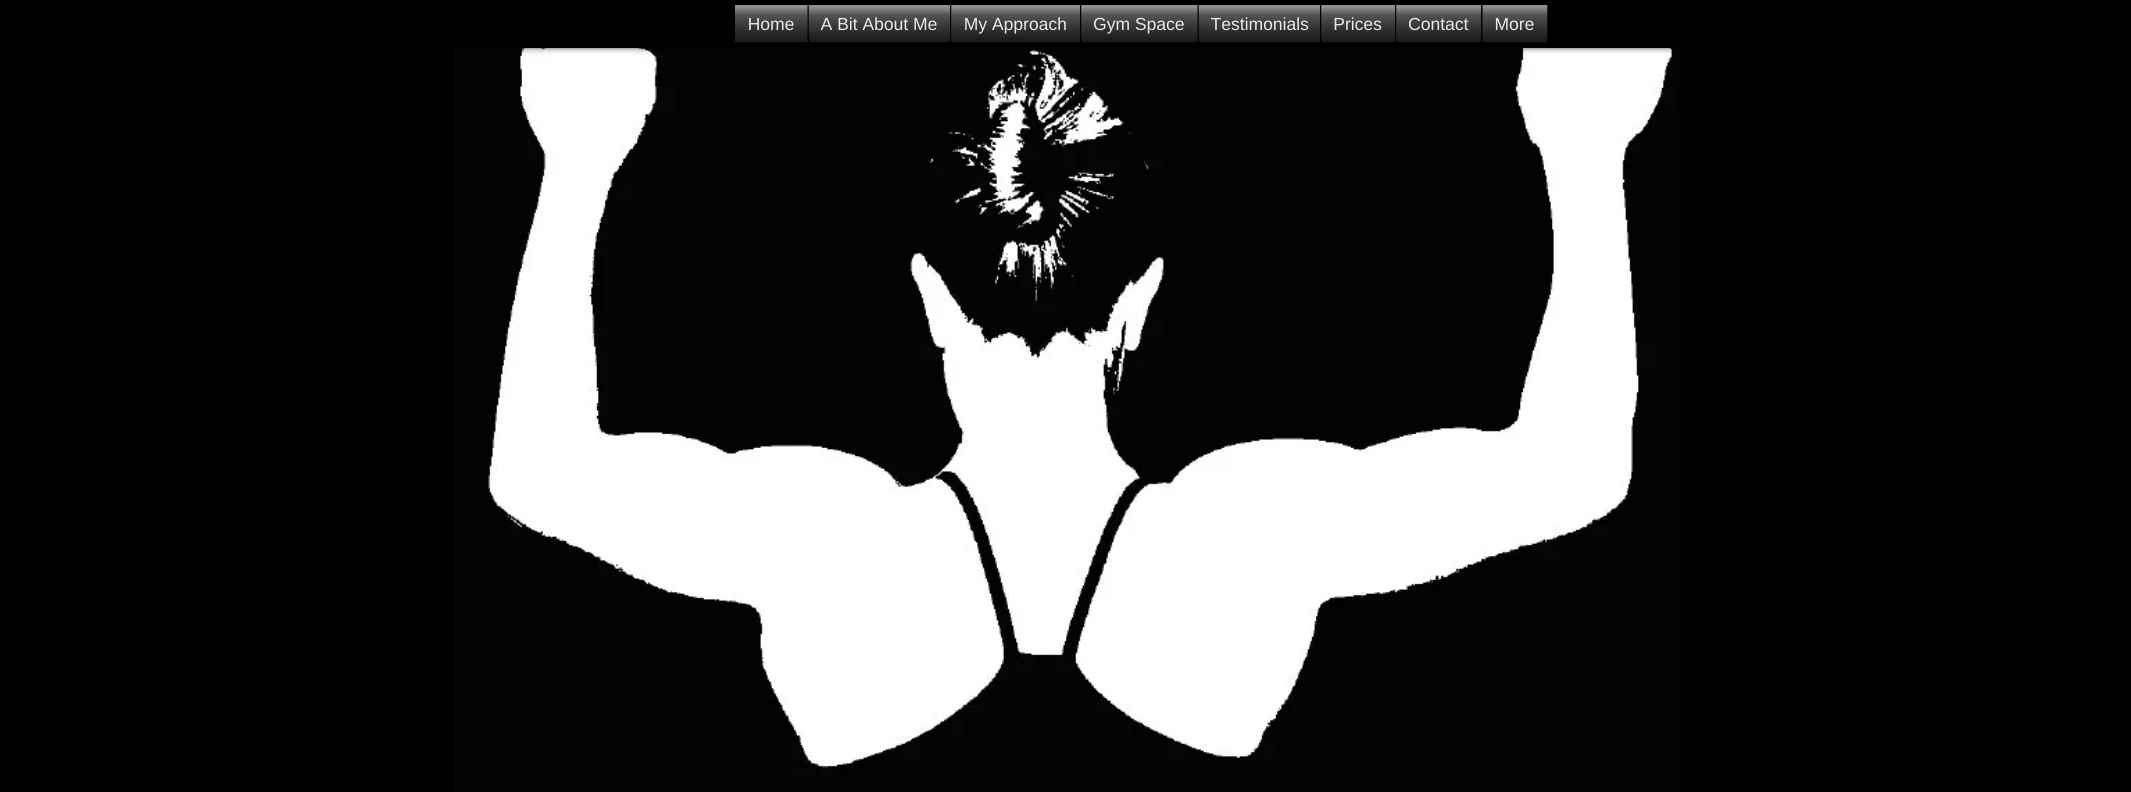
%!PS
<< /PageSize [2131 792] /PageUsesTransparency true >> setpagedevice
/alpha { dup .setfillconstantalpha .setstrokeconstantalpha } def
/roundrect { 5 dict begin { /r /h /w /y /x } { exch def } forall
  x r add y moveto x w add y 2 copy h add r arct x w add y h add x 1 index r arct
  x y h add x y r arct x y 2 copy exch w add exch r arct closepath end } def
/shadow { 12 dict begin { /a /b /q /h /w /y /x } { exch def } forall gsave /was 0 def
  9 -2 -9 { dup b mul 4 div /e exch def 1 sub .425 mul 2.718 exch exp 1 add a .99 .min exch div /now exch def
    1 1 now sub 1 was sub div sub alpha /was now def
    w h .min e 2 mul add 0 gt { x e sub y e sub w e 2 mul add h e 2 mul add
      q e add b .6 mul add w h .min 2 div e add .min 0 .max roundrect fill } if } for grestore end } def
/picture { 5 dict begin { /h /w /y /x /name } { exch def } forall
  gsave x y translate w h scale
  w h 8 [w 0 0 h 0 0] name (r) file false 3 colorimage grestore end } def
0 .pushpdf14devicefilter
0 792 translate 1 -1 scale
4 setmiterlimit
0 setgray
0 0 2131 792 rectfill
(img17.rgb) 454 48 1225 744 picture
0 -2 2131 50 0 3 0.7 shadow
/LiberationSans-Regular [17.5 0 0 -17.5 0 0] selectfont
1 setgray
748 30 moveto (Home) show
(img1.rgb) 735 5 73 38 picture
(img2.rgb) 735 5 72 36 picture
821 30 moveto (A Bit About Me) show
(img3.rgb) 808 5 142 38 picture
(img4.rgb) 809 5 141 36 picture
964 30 moveto (My Approach) show
(img5.rgb) 951 5 129 38 picture
(img6.rgb) 952 5 128 36 picture
1093 30 moveto (Gym Space) show
(img7.rgb) 1081 5 117 38 picture
(img8.rgb) 1082 5 115 36 picture
1211 30 moveto (Testimonials) show
(img9.rgb) 1198 5 122 38 picture
(img10.rgb) 1199 5 121 36 picture
1333 30 moveto (Prices) show
(img11.rgb) 1321 5 74 38 picture
(img12.rgb) 1322 5 73 36 picture
1408 30 moveto (Contact) show
(img13.rgb) 1396 5 85 38 picture
(img14.rgb) 1397 5 84 36 picture
1494 30 moveto (More) show
(img15.rgb) 1482 5 66 38 picture
(img16.rgb) 1483 5 64 36 picture
.poppdf14devicefilter showpage
